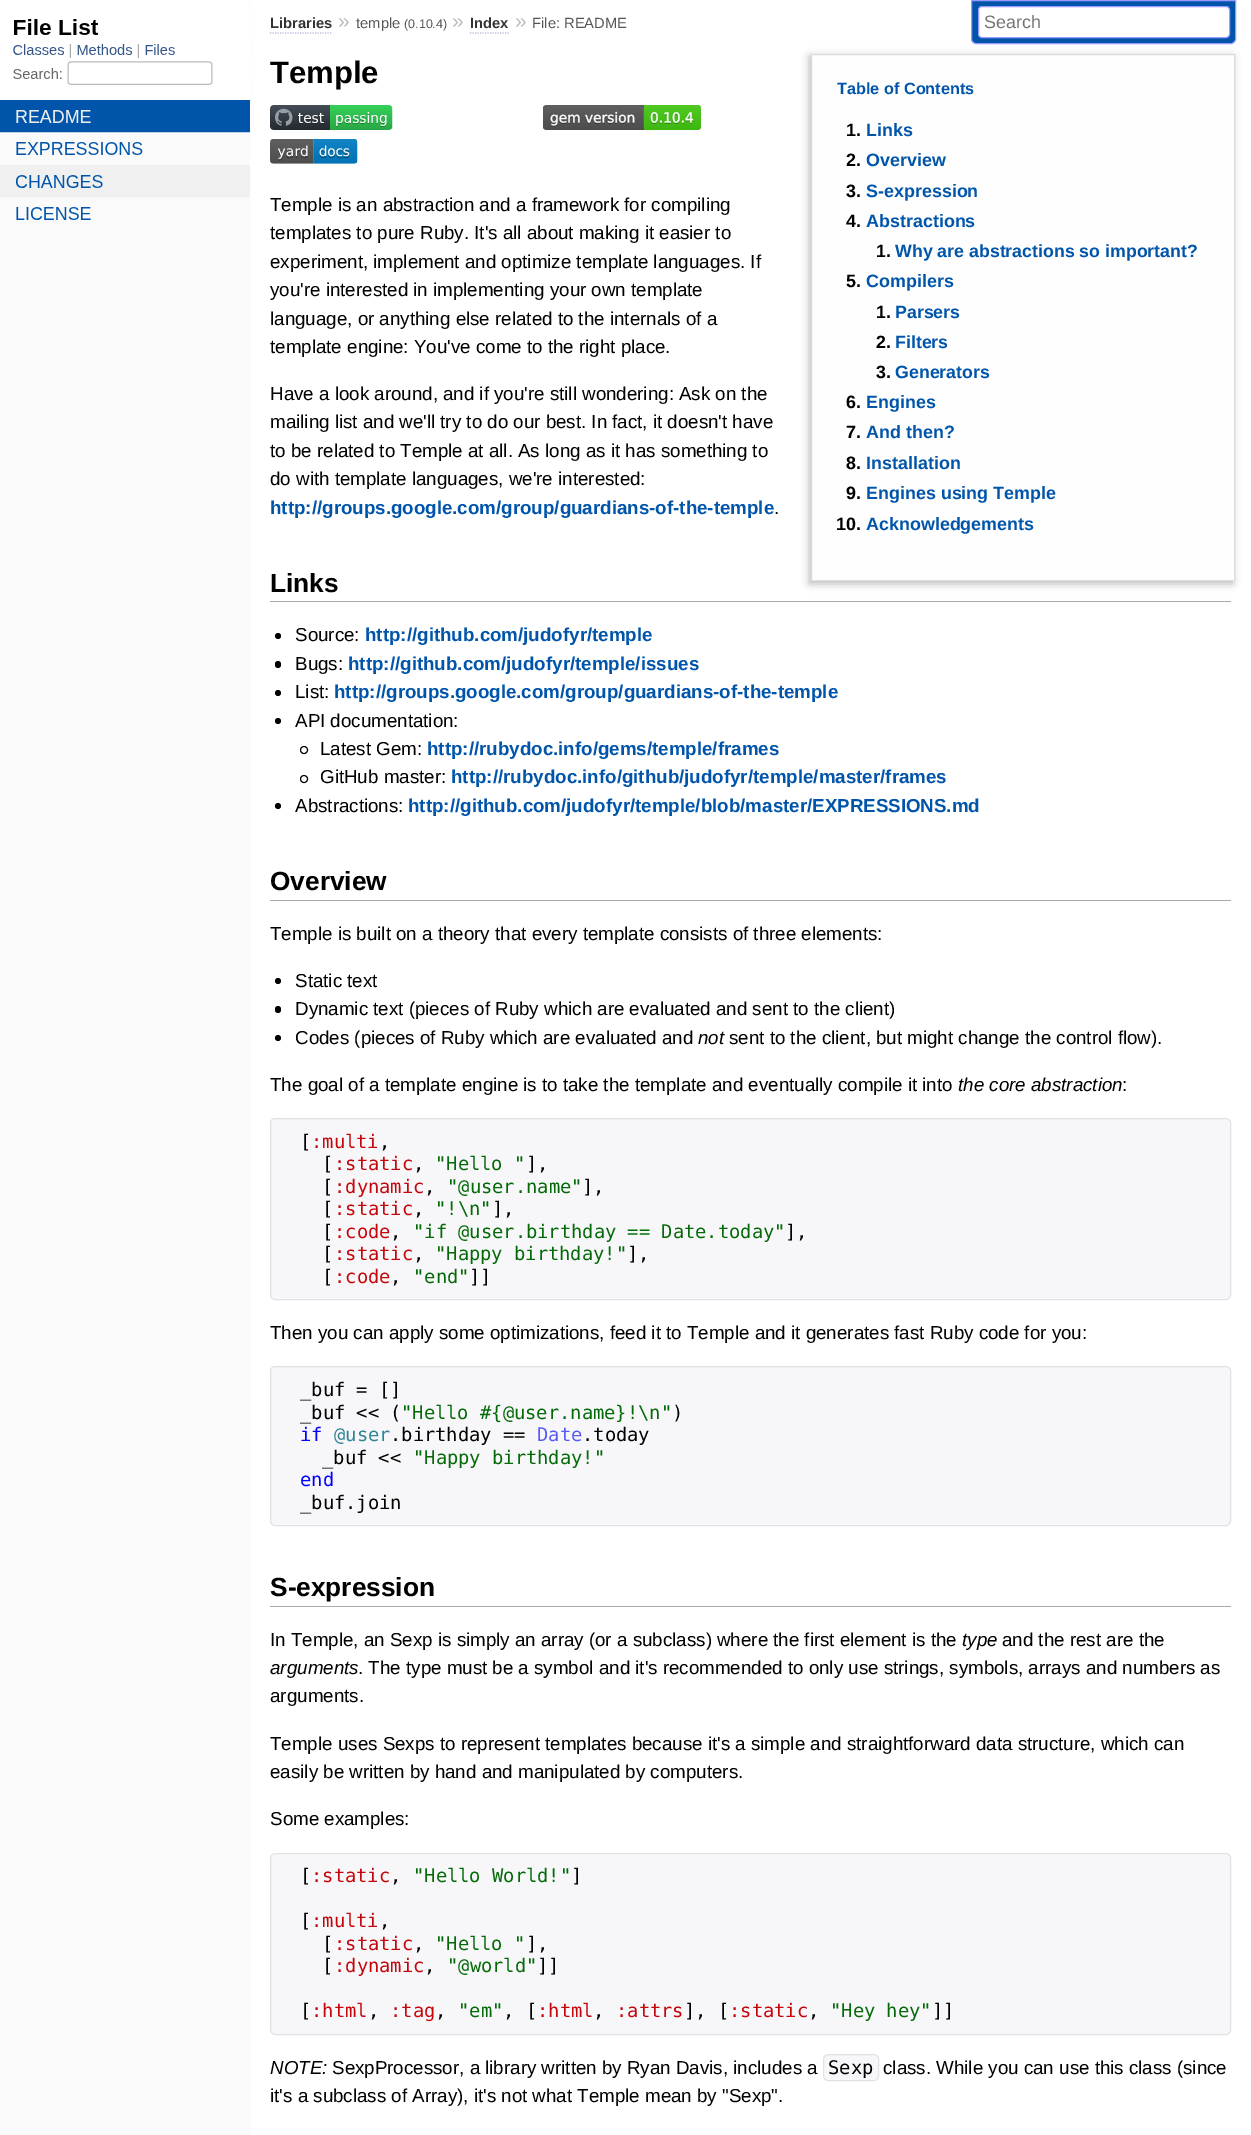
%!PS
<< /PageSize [1251 2135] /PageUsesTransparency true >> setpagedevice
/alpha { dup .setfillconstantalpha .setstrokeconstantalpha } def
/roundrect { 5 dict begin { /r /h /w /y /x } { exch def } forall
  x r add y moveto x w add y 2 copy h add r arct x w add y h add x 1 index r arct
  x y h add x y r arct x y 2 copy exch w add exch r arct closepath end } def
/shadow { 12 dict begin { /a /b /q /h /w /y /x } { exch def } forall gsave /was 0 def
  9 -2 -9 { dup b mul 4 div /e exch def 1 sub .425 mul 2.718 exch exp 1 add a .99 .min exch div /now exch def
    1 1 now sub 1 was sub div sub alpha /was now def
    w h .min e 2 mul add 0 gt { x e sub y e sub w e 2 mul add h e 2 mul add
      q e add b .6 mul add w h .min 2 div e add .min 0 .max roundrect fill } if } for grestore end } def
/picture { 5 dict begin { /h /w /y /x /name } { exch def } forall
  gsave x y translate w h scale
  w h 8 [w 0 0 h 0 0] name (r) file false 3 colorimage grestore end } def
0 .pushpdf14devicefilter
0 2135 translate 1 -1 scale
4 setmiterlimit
1 setgray
0 0 1251 2135 rectfill
0.933 setgray
1.2 setlinewidth
[1.25 1.25] 0 setdash
newpath 250.5 0 moveto 250.5 2135 lineto stroke
(img1.rgb) 0 19 250 2116 picture
1 setgray
250 0 1 2134 rectfill
/LiberationSans-Bold [14.75 0 0 -14.75 0 0] selectfont
0.2 setgray
270 28 moveto (Libraries) show
0.733 0.733 0.867 setrgbcolor
newpath 270 33 moveto 332.5 33 lineto stroke
/LiberationSans-Regular [21 0 0 -21 0 0] selectfont
0.733 setgray
338 28 moveto (») show
/LiberationSans-Regular [14.75 0 0 -14.75 0 0] selectfont
0.333 setgray
356 28 moveto (temple) show
/LiberationSans-Regular [12.5 0 0 -12.5 0 0] selectfont
404 28 moveto (\(0.10.4\)) show
/LiberationSans-Regular [21 0 0 -21 0 0] selectfont
0.733 setgray
452 28 moveto (») show
/LiberationSans-Bold [14.75 0 0 -14.75 0 0] selectfont
0.2 setgray
470 28 moveto (Index) show
0.733 0.733 0.867 setrgbcolor
newpath 470 33 moveto 509 33 lineto stroke
/LiberationSans-Regular [21 0 0 -21 0 0] selectfont
0.733 setgray
515 28 moveto (») show
/LiberationSans-Regular [14.75 0 0 -14.75 0 0] selectfont
0.333 setgray
532 28 moveto (File: README) show
0.733 setgray
809 56 424 528 0 4 1 shadow
0 0.333 0.667 setrgbcolor
newpath 971.5 0.5 moveto 1235.5 0.5 lineto 1235.5 39 lineto 1235.5 41.5 1233.5 43.5 1231 43.5 curveto 976 43.5 lineto 973.5 43.5 971.5 41.5 971.5 39 curveto closepath gsave fill grestore
0.6 0.6 1 setrgbcolor
1 setlinewidth
[] 0 setdash
stroke
1 setgray
978.5 6.5 251 31 3.5 roundrect gsave fill grestore
0.6 0.6 1 setrgbcolor
stroke
/LiberationSans-Regular [17.9 0 0 -17.9 0 0] selectfont
0.459 setgray
984 28 moveto (Search) show
/LiberationSans-Bold [31 0 0 -31 0 0] selectfont
0 setgray
270 83 moveto (Temple) show
(img2.rgb) 270 105 123 25 picture
(img3.rgb) 543 105 158 25 picture
(img4.rgb) 270 139 88 25 picture
/LiberationSans-Regular [18.75 0 0 -18.75 0 0] selectfont
270 211 moveto (Temple is an abstraction and a framework for compiling) show
270 239 moveto (templates to pure Ruby. It's all about making it easier to) show
270 268 moveto (experiment, implement and optimize template languages. If) show
270 296 moveto (you're interested in implementing your own template) show
270 325 moveto (language, or anything else related to the internals of a) show
270 353 moveto (template engine: You've come to the right place.) show
270 400 moveto (Have a look around, and if you're still wondering: Ask on the) show
270 428 moveto (mailing list and we'll try to do our best. In fact, it doesn't have) show
270 457 moveto (to be related to Temple at all. As long as it has something to) show
270 485 moveto (do with template languages, we're interested:) show
/LiberationSans-Bold [18.75 0 0 -18.75 0 0] selectfont
0 0.333 0.667 setrgbcolor
270 514 moveto (http://groups.google.com/group/guardians-of-the-temple) show
/LiberationSans-Regular [18.75 0 0 -18.75 0 0] selectfont
0 setgray
774 514 moveto (.) show
0.667 setgray
270 601 961 1 rectfill
/LiberationSans-Bold [26.25 0 0 -26.25 0 0] selectfont
0 setgray
270 592 moveto (Links) show
newpath 278 636 3 0 360 arc closepath fill
/LiberationSans-Regular [18.75 0 0 -18.75 0 0] selectfont
295 641 moveto (Source:) show
/LiberationSans-Bold [18.75 0 0 -18.75 0 0] selectfont
0 0.333 0.667 setrgbcolor
365 641 moveto (http://github.com/judofyr/temple) show
0 setgray
275 661 6 7 3 roundrect fill
/LiberationSans-Regular [18.75 0 0 -18.75 0 0] selectfont
295 670 moveto (Bugs:) show
/LiberationSans-Bold [18.75 0 0 -18.75 0 0] selectfont
0 0.333 0.667 setrgbcolor
348 670 moveto (http://github.com/judofyr/temple/issues) show
0 setgray
newpath 278 693 3 0 360 arc closepath fill
/LiberationSans-Regular [18.75 0 0 -18.75 0 0] selectfont
295 698 moveto (List:) show
/LiberationSans-Bold [18.75 0 0 -18.75 0 0] selectfont
0 0.333 0.667 setrgbcolor
334 698 moveto (http://groups.google.com/group/guardians-of-the-temple) show
0 setgray
newpath 278 721 3 0 360 arc closepath fill
/LiberationSans-Regular [18.75 0 0 -18.75 0 0] selectfont
295 727 moveto (API documentation:) show
newpath 304 750 3.5 0 360 arc closepath stroke
320 755 moveto (Latest Gem:) show
/LiberationSans-Bold [18.75 0 0 -18.75 0 0] selectfont
0 0.333 0.667 setrgbcolor
427 755 moveto (http://rubydoc.info/gems/temple/frames) show
0 setgray
newpath 304 779 3.5 0 360 arc closepath stroke
/LiberationSans-Regular [18.75 0 0 -18.75 0 0] selectfont
320 783 moveto (GitHub master:) show
/LiberationSans-Bold [18.75 0 0 -18.75 0 0] selectfont
0 0.333 0.667 setrgbcolor
451 783 moveto (http://rubydoc.info/github/judofyr/temple/master/frames) show
0 setgray
newpath 278 806 3 0 360 arc closepath fill
/LiberationSans-Regular [18.75 0 0 -18.75 0 0] selectfont
295 812 moveto (Abstractions:) show
/LiberationSans-Bold [18.75 0 0 -18.75 0 0] selectfont
0 0.333 0.667 setrgbcolor
408 812 moveto (http://github.com/judofyr/temple/blob/master/EXPRESSIONS.md) show
0.667 setgray
270 900 961 1 rectfill
/LiberationSans-Bold [26.25 0 0 -26.25 0 0] selectfont
0 setgray
270 890 moveto (Overview) show
/LiberationSans-Regular [18.75 0 0 -18.75 0 0] selectfont
270 940 moveto (Temple is built on a theory that every template consists of three elements:) show
newpath 278 981 3 0 360 arc closepath fill
295 987 moveto (Static text) show
275 1006 6 7 3 roundrect fill
295 1015 moveto (Dynamic text \(pieces of Ruby which are evaluated and sent to the client\)) show
newpath 278 1038 3 0 360 arc closepath fill
295 1044 moveto (Codes \(pieces of Ruby which are evaluated and) show
/LiberationSans-Italic [18.75 0 0 -18.75 0 0] selectfont
698 1044 moveto (not) show
/LiberationSans-Regular [18.75 0 0 -18.75 0 0] selectfont
729 1044 moveto (sent to the client, but might change the control flow\).) show
270 1091 moveto (The goal of a template engine is to take the template and eventually compile it into) show
/LiberationSans-Italic [18.75 0 0 -18.75 0 0] selectfont
958 1091 moveto (the core abstraction) show
/LiberationSans-Regular [18.75 0 0 -18.75 0 0] selectfont
1122 1091 moveto (:) show
0.969 0.969 0.976 setrgbcolor
270.5 1118.5 960 181 4.5 roundrect gsave fill grestore
0.882 0.882 0.91 setrgbcolor
stroke
/DejaVuSansMono-Regular [18.75 0 0 -18.75 0 0] selectfont
0 setgray
300 1148 moveto ([) show
0.773 0.024 0.043 setrgbcolor
311 1148 moveto (:multi) show
0 setgray
379 1148 moveto (,) show
322 1170 moveto ([) show
0.773 0.024 0.043 setrgbcolor
334 1170 moveto (:static) show
0 setgray
413 1170 moveto (,) show
0.012 0.416 0.027 setrgbcolor
435 1170 moveto ("Hello ") show
0 setgray
526 1170 moveto (],) show
322 1193 moveto ([) show
0.773 0.024 0.043 setrgbcolor
334 1193 moveto (:dynamic) show
0 setgray
424 1193 moveto (,) show
0.012 0.416 0.027 setrgbcolor
447 1193 moveto ("@user.name") show
0 setgray
582 1193 moveto (],) show
322 1215 moveto ([) show
0.773 0.024 0.043 setrgbcolor
334 1215 moveto (:static) show
0 setgray
413 1215 moveto (,) show
0.012 0.416 0.027 setrgbcolor
435 1215 moveto ("!\\n") show
0 setgray
492 1215 moveto (],) show
322 1238 moveto ([) show
0.773 0.024 0.043 setrgbcolor
334 1238 moveto (:code) show
0 setgray
390 1238 moveto (,) show
0.012 0.416 0.027 setrgbcolor
413 1238 moveto ("if @user.birthday == Date.today") show
0 setgray
785 1238 moveto (],) show
322 1260 moveto ([) show
0.773 0.024 0.043 setrgbcolor
334 1260 moveto (:static) show
0 setgray
413 1260 moveto (,) show
0.012 0.416 0.027 setrgbcolor
435 1260 moveto ("Happy birthday!") show
0 setgray
627 1260 moveto (],) show
322 1283 moveto ([) show
0.773 0.024 0.043 setrgbcolor
334 1283 moveto (:code) show
0 setgray
390 1283 moveto (,) show
0.012 0.416 0.027 setrgbcolor
413 1283 moveto ("end") show
0 setgray
469 1283 moveto (]]) show
/LiberationSans-Regular [18.75 0 0 -18.75 0 0] selectfont
270 1339 moveto (Then you can apply some optimizations, feed it to Temple and it generates fast Ruby code for you:) show
0.969 0.969 0.976 setrgbcolor
270.5 1366.5 960 159 4.5 roundrect gsave fill grestore
0.882 0.882 0.91 setrgbcolor
stroke
/DejaVuSansMono-Regular [18.75 0 0 -18.75 0 0] selectfont
0 setgray
300 1396 moveto (_buf = []) show
300 1419 moveto (_buf << \() show
0.012 0.416 0.027 setrgbcolor
401 1419 moveto ("Hello #{@user.name}!\\n") show
0 setgray
672 1419 moveto (\)) show
0 0 1 setrgbcolor
300 1441 moveto (if) show
0.192 0.518 0.584 setrgbcolor
334 1441 moveto (@user) show
0 setgray
390 1441 moveto (.birthday ==) show
0.345 0.361 0.965 setrgbcolor
537 1441 moveto (Date) show
0 setgray
582 1441 moveto (.today) show
322 1464 moveto (_buf <<) show
0.012 0.416 0.027 setrgbcolor
413 1464 moveto ("Happy birthday!") show
0 0 1 setrgbcolor
300 1486 moveto (end) show
0 setgray
300 1509 moveto (_buf.join) show
0.667 setgray
270 1606 961 1 rectfill
/LiberationSans-Bold [26.25 0 0 -26.25 0 0] selectfont
0 setgray
270 1596 moveto (S-expression) show
/LiberationSans-Regular [18.75 0 0 -18.75 0 0] selectfont
270 1646 moveto (In Temple, an Sexp is simply an array \(or a subclass\) where the first element is the) show
/LiberationSans-Italic [18.75 0 0 -18.75 0 0] selectfont
962 1646 moveto (type) show
/LiberationSans-Regular [18.75 0 0 -18.75 0 0] selectfont
1002 1646 moveto (and the rest are the) show
/LiberationSans-Italic [18.75 0 0 -18.75 0 0] selectfont
270 1674 moveto (arguments) show
/LiberationSans-Regular [18.75 0 0 -18.75 0 0] selectfont
358 1674 moveto (. The type must be a symbol and it's recommended to only use strings, symbols, arrays and numbers as) show
270 1702 moveto (arguments.) show
270 1750 moveto (Temple uses Sexps to represent templates because it's a simple and straightforward data structure, which can) show
270 1778 moveto (easily be written by hand and manipulated by computers.) show
270 1825 moveto (Some examples:) show
0.969 0.969 0.976 setrgbcolor
270.5 1853.5 960 181 4.5 roundrect gsave fill grestore
0.882 0.882 0.91 setrgbcolor
stroke
/DejaVuSansMono-Regular [18.75 0 0 -18.75 0 0] selectfont
0 setgray
300 1882 moveto ([) show
0.773 0.024 0.043 setrgbcolor
311 1882 moveto (:static) show
0 setgray
390 1882 moveto (,) show
0.012 0.416 0.027 setrgbcolor
413 1882 moveto ("Hello World!") show
0 setgray
571 1882 moveto (]) show
300 1927 moveto ([) show
0.773 0.024 0.043 setrgbcolor
311 1927 moveto (:multi) show
0 setgray
379 1927 moveto (,) show
322 1950 moveto ([) show
0.773 0.024 0.043 setrgbcolor
334 1950 moveto (:static) show
0 setgray
413 1950 moveto (,) show
0.012 0.416 0.027 setrgbcolor
435 1950 moveto ("Hello ") show
0 setgray
526 1950 moveto (],) show
322 1972 moveto ([) show
0.773 0.024 0.043 setrgbcolor
334 1972 moveto (:dynamic) show
0 setgray
424 1972 moveto (,) show
0.012 0.416 0.027 setrgbcolor
447 1972 moveto ("@world") show
0 setgray
537 1972 moveto (]]) show
300 2017 moveto ([) show
0.773 0.024 0.043 setrgbcolor
311 2017 moveto (:html) show
0 setgray
368 2017 moveto (,) show
0.773 0.024 0.043 setrgbcolor
390 2017 moveto (:tag) show
0 setgray
435 2017 moveto (,) show
0.012 0.416 0.027 setrgbcolor
458 2017 moveto ("em") show
0 setgray
503 2017 moveto (, [) show
0.773 0.024 0.043 setrgbcolor
537 2017 moveto (:html) show
0 setgray
593 2017 moveto (,) show
0.773 0.024 0.043 setrgbcolor
616 2017 moveto (:attrs) show
0 setgray
684 2017 moveto (], [) show
0.773 0.024 0.043 setrgbcolor
729 2017 moveto (:static) show
0 setgray
808 2017 moveto (,) show
0.012 0.416 0.027 setrgbcolor
830 2017 moveto ("Hey hey") show
0 setgray
932 2017 moveto (]]) show
/LiberationSans-Italic [18.75 0 0 -18.75 0 0] selectfont
270 2074 moveto (NOTE:) show
/LiberationSans-Regular [18.75 0 0 -18.75 0 0] selectfont
332 2074 moveto (SexpProcessor, a library written by Ryan Davis, includes a) show
0.969 0.969 0.976 setrgbcolor
823.5 2054.5 55 26 4.5 roundrect gsave fill grestore
0.882 0.882 0.91 setrgbcolor
stroke
/DejaVuSansMono-Regular [18.75 0 0 -18.75 0 0] selectfont
0 setgray
828 2074 moveto (Sexp) show
/LiberationSans-Regular [18.75 0 0 -18.75 0 0] selectfont
883 2074 moveto (class. While you can use this class \(since) show
270 2102 moveto (it's a subclass of Array\), it's not what Temple mean by "Sexp".) show
0.996 setgray
newpath 811.5 54.5 moveto 1234.5 54.5 lineto 1234.5 580.5 lineto 811.5 580.5 lineto closepath gsave fill grestore
0.867 setgray
stroke
/LiberationSans-Bold [16.25 0 0 -16.25 0 0] selectfont
0 0.333 0.667 setrgbcolor
837 94 moveto (Table of Contents) show
/LiberationSans-Bold [17.9 0 0 -17.9 0 0] selectfont
0 setgray
846 136 moveto (1.) show
0 0.333 0.667 setrgbcolor
866 136 moveto (Links) show
0 setgray
846 166 moveto (2.) show
0 0.333 0.667 setrgbcolor
866 166 moveto (Overview) show
0 setgray
846 197 moveto (3.) show
0 0.333 0.667 setrgbcolor
866 197 moveto (S-expression) show
0 setgray
846 227 moveto (4.) show
0 0.333 0.667 setrgbcolor
866 227 moveto (Abstractions) show
/LiberationSans-Bold [17.75 0 0 -17.75 0 0] selectfont
0 setgray
876 257 moveto (1.) show
0 0.333 0.667 setrgbcolor
895 257 moveto (Why are abstractions so important?) show
/LiberationSans-Bold [17.9 0 0 -17.9 0 0] selectfont
0 setgray
846 287 moveto (5.) show
0 0.333 0.667 setrgbcolor
866 287 moveto (Compilers) show
/LiberationSans-Bold [17.75 0 0 -17.75 0 0] selectfont
0 setgray
876 318 moveto (1.) show
0 0.333 0.667 setrgbcolor
895 318 moveto (Parsers) show
0 setgray
876 348 moveto (2.) show
0 0.333 0.667 setrgbcolor
895 348 moveto (Filters) show
0 setgray
876 378 moveto (3.) show
0 0.333 0.667 setrgbcolor
895 378 moveto (Generators) show
/LiberationSans-Bold [17.9 0 0 -17.9 0 0] selectfont
0 setgray
846 408 moveto (6.) show
0 0.333 0.667 setrgbcolor
866 408 moveto (Engines) show
0 setgray
846 438 moveto (7.) show
0 0.333 0.667 setrgbcolor
866 438 moveto (And then?) show
0 setgray
846 469 moveto (8.) show
0 0.333 0.667 setrgbcolor
866 469 moveto (Installation) show
0 setgray
846 499 moveto (9.) show
0 0.333 0.667 setrgbcolor
866 499 moveto (Engines using Temple) show
0 setgray
836 530 moveto (10.) show
0 0.333 0.667 setrgbcolor
866 530 moveto (Acknowledgements) show
.poppdf14devicefilter showpage
